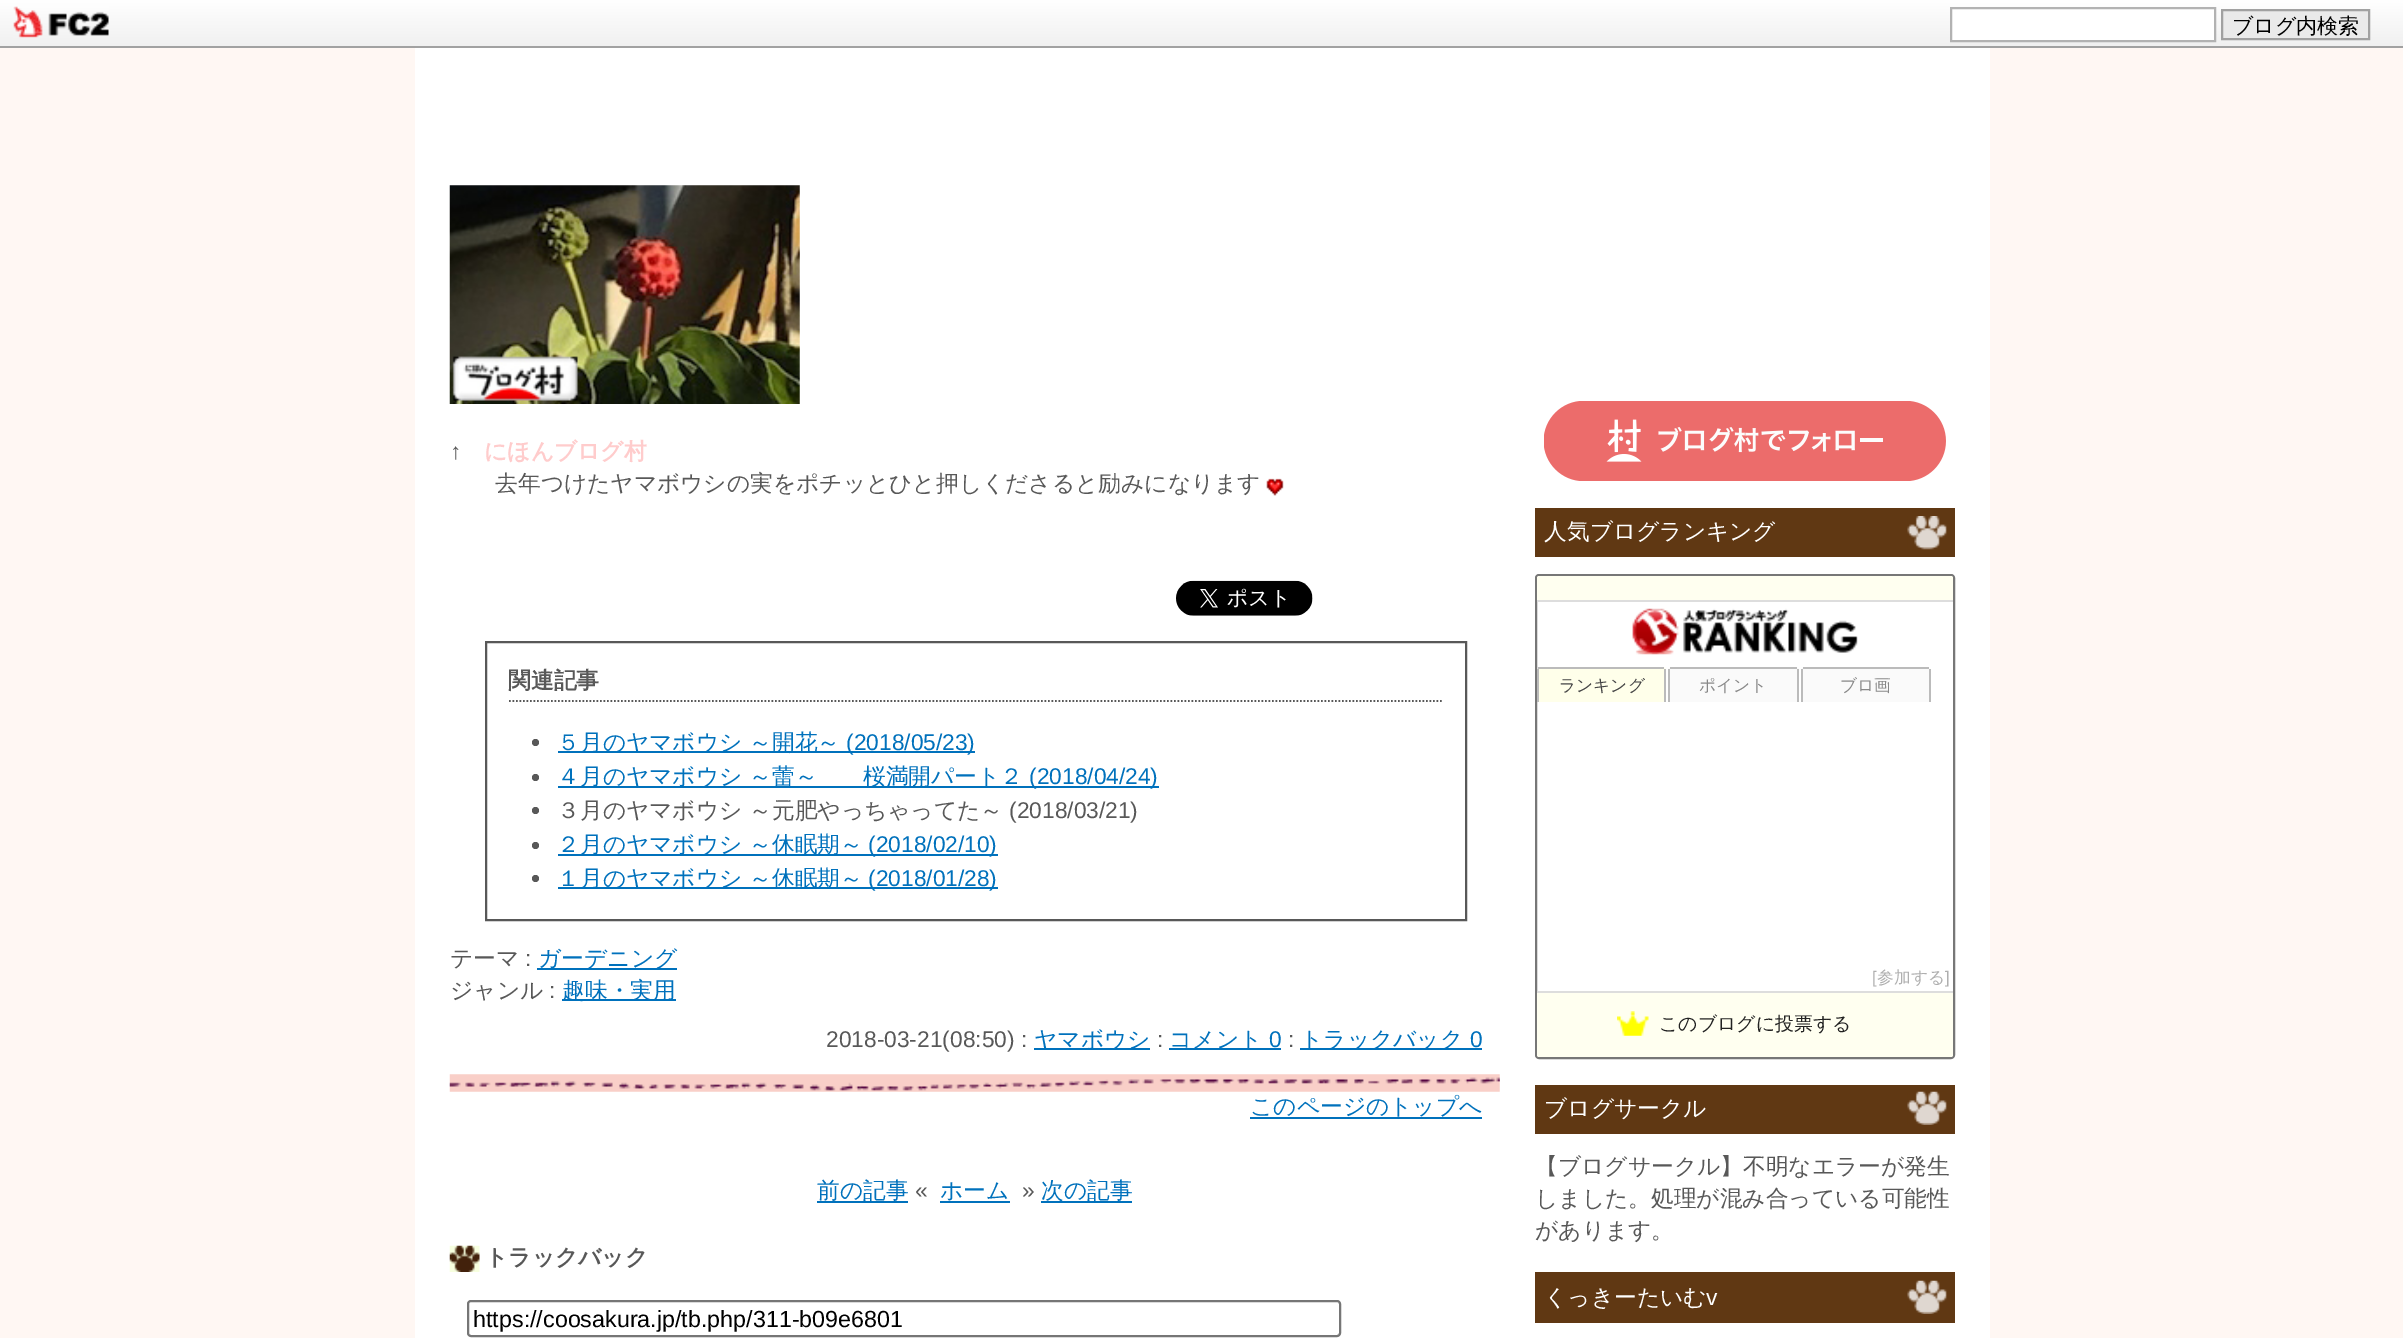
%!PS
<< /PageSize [2403 1338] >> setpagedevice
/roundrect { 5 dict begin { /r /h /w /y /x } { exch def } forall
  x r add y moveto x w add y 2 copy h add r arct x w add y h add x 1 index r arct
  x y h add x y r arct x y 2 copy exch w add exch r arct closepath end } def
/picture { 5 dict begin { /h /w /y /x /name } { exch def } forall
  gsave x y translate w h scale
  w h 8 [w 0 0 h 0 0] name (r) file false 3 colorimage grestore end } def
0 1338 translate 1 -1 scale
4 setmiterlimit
1 0.969 0.953 setrgbcolor
0 0 2403 1338 rectfill
gsave newpath 0 0 moveto 2403 0 lineto 2403 46 lineto 0 46 lineto closepath clip newpath
<< /ShadingType 2 /ColorSpace /DeviceRGB /Coords [0 0 0 46] /Extend [true true] /Function << /FunctionType 2 /Domain [0 1] /C0 [1 1 1] /C1 [0.941 0.941 0.941] /N 1 >> >> shfill grestore
0.631 setgray
0 46 2403 2 rectfill
(img1.rgb) 13 6 96 32 picture
1 setgray
newpath 1951 8 moveto 2215 8 lineto 2215 41 lineto 1951 41 lineto closepath gsave fill grestore
0.698 setgray
2 setlinewidth
stroke
0.918 setgray
newpath 2222 10 moveto 2369 10 lineto 2369 39 lineto 2222 39 lineto closepath gsave fill grestore
0.631 setgray
stroke
/WenQuanYiZenHei-Medium [21 0 0 -21 0 0] selectfont
0 setgray
2232 33 moveto (ブログ内検索) show
1 setgray
415 48 1575 1290 rectfill
(img2.rgb) 449 185 351 219 picture
/LiberationSans-Regular [22.75 0 0 -22.75 0 0] selectfont
0.345 setgray
450 459 moveto (↑) show
/WenQuanYiZenHei-Bold [22.75 0 0 -22.75 0 0] selectfont
1 0.8 0.8 setrgbcolor
484 459 moveto (にほんブログ村) show
/WenQuanYiZenHei-Medium [22.75 0 0 -22.75 0 0] selectfont
0.345 setgray
495 491 moveto (去年つけたヤマボウシの実をポチッとひと押しくださると励みになります) show
(img3.rgb) 1266 478 18 18 picture
(img4.rgb) 1176 580 137 36 picture
486 642 980 278 rectstroke
1.8 setlinewidth
[1.75 1.75] 0 setdash
newpath 509 701 moveto 1442 701 lineto stroke
/WenQuanYiZenHei-Bold [22.75 0 0 -22.75 0 0] selectfont
508 688 moveto (関連記事) show
newpath 535.5 742.5 3.5 0 360 arc closepath fill
0 0.443 0.737 setrgbcolor
558 751 417 2 rectfill
/WenQuanYiZenHei-Medium [22.75 0 0 -22.75 0 0] selectfont
557 750 moveto (５月のヤマボウシ ～開花～) show
/LiberationSans-Regular [22.75 0 0 -22.75 0 0] selectfont
846 750 moveto (\(2018/05/23\)) show
0.345 setgray
newpath 535.5 777.5 3.5 0 360 arc closepath fill
0 0.443 0.737 setrgbcolor
558 786 601 2 rectfill
/WenQuanYiZenHei-Medium [22.75 0 0 -22.75 0 0] selectfont
557 784 moveto (４月のヤマボウシ ～蕾～　　桜満開パート２) show
/LiberationSans-Regular [22.75 0 0 -22.75 0 0] selectfont
1029 784 moveto (\(2018/04/24\)) show
0.345 setgray
newpath 535.5 810.5 3.5 0 360 arc closepath fill
/WenQuanYiZenHei-Medium [22.75 0 0 -22.75 0 0] selectfont
557 818 moveto (３月のヤマボウシ ～元肥やっちゃってた～) show
/LiberationSans-Regular [22.75 0 0 -22.75 0 0] selectfont
1009 818 moveto (\(2018/03/21\)) show
newpath 535.5 845.5 3.5 0 360 arc closepath fill
0 0.443 0.737 setrgbcolor
558 854 440 2 rectfill
/WenQuanYiZenHei-Medium [22.75 0 0 -22.75 0 0] selectfont
557 852 moveto (２月のヤマボウシ ～休眠期～) show
/LiberationSans-Regular [22.75 0 0 -22.75 0 0] selectfont
868 852 moveto (\(2018/02/10\)) show
0.345 setgray
newpath 535.5 878.5 3.5 0 360 arc closepath fill
0 0.443 0.737 setrgbcolor
558 887 440 2 rectfill
/WenQuanYiZenHei-Medium [22.75 0 0 -22.75 0 0] selectfont
557 886 moveto (１月のヤマボウシ ～休眠期～) show
/LiberationSans-Regular [22.75 0 0 -22.75 0 0] selectfont
868 886 moveto (\(2018/01/28\)) show
/WenQuanYiZenHei-Medium [22.75 0 0 -22.75 0 0] selectfont
0.345 setgray
450 966 moveto (テーマ) show
/LiberationSans-Regular [22.75 0 0 -22.75 0 0] selectfont
525 966 moveto (:) show
0 0.443 0.737 setrgbcolor
537 968 140 2 rectfill
/WenQuanYiZenHei-Medium [22.75 0 0 -22.75 0 0] selectfont
538 966 moveto (ガーデニング) show
0.345 setgray
450 998 moveto (ジャンル) show
/LiberationSans-Regular [22.75 0 0 -22.75 0 0] selectfont
549 998 moveto (:) show
0 0.443 0.737 setrgbcolor
562 999 114 2 rectfill
/WenQuanYiZenHei-Medium [22.75 0 0 -22.75 0 0] selectfont
562 998 moveto (趣味・実用) show
/LiberationSans-Regular [22.75 0 0 -22.75 0 0] selectfont
0.345 setgray
826 1047 moveto (2018-03-21\(08:50\) :) show
0 0.443 0.737 setrgbcolor
1034 1048 116 2 rectfill
/WenQuanYiZenHei-Medium [22.75 0 0 -22.75 0 0] selectfont
1034 1047 moveto (ヤマボウシ) show
/LiberationSans-Regular [22.75 0 0 -22.75 0 0] selectfont
0.345 setgray
1157 1047 moveto (:) show
0 0.443 0.737 setrgbcolor
1169 1048 112 2 rectfill
/WenQuanYiZenHei-Medium [22.75 0 0 -22.75 0 0] selectfont
1169 1047 moveto (コメント) show
/LiberationSans-Regular [22.75 0 0 -22.75 0 0] selectfont
1269 1047 moveto (0) show
0.345 setgray
1288 1047 moveto (:) show
0 0.443 0.737 setrgbcolor
1300 1048 182 2 rectfill
/WenQuanYiZenHei-Medium [22.75 0 0 -22.75 0 0] selectfont
1300 1047 moveto (トラックバック) show
/LiberationSans-Regular [22.75 0 0 -22.75 0 0] selectfont
1470 1047 moveto (0) show
(img5.rgb) 449 1074 1051 18 picture
/WenQuanYiZenHei-Medium [22.75 0 0 -22.75 0 0] selectfont
1250 1114 moveto (このページのトップへ) show
1250 1117 232 2 rectfill
817 1198 moveto (前の記事) show
817 1201 91 2 rectfill
/LiberationSans-Regular [22.75 0 0 -22.75 0 0] selectfont
0.345 setgray
915 1198 moveto («) show
/WenQuanYiZenHei-Medium [22.75 0 0 -22.75 0 0] selectfont
0 0.443 0.737 setrgbcolor
940 1198 moveto (ホーム) show
940 1201 70 2 rectfill
/LiberationSans-Regular [22.75 0 0 -22.75 0 0] selectfont
0.345 setgray
1022 1198 moveto (») show
0 0.443 0.737 setrgbcolor
1041 1201 91 2 rectfill
/WenQuanYiZenHei-Medium [22.75 0 0 -22.75 0 0] selectfont
1041 1198 moveto (次の記事) show
(img6.rgb) 449 1245 31 27 picture
/WenQuanYiZenHei-Bold [22.75 0 0 -22.75 0 0] selectfont
0.345 setgray
485 1265 moveto (トラックバック) show
0.463 setgray
2 setlinewidth
[] 0 setdash
468 1301 872 35 3 roundrect stroke
/LiberationSans-Regular [23.3 0 0 -23.3 0 0] selectfont
0 setgray
473 1327 moveto (https://coosakura.jp/tb.php/311-b09e6801) show
(img7.rgb) 1544 401 402 80 picture
0.376 0.22 0.075 setrgbcolor
1535 508 420 49 rectfill
(img8.rgb) 1907 516 40 34 picture
/WenQuanYiZenHei-Medium [22.75 0 0 -22.75 0 0] selectfont
1 setgray
1544 539 moveto (人気ブログランキング) show
0.467 setgray
1536 575 418 483 3 roundrect stroke
1 1 0.941 setrgbcolor
newpath 1539 576 moveto 1951 576 lineto 1952 576 1953 577 1953 578 curveto 1953 602 lineto 1537 602 lineto 1537 578 lineto 1537 577 1538 576 1539 576 curveto closepath fill
0.867 setgray
1537 600 416 2 rectfill
(img9.rgb) 1632 608 226 47 picture
1 1 0.918 setrgbcolor
newpath 1541 667 moveto 1662 667 lineto 1664 667 1666 669 1666 671 curveto 1666 702 lineto 1537 702 lineto 1537 671 lineto 1537 669 1539 667 1541 667 curveto closepath fill
0.733 setgray
1538 667 126 2 rectfill
1664 669 2 33 rectfill
1537 669 2 33 rectfill
/WenQuanYiZenHei-Medium [16.75 0 0 -16.75 0 0] selectfont
0.267 setgray
1559 691 moveto (ランキング) show
0.98 setgray
newpath 1672 667 moveto 1795 667 lineto 1797 667 1799 669 1799 671 curveto 1799 702 lineto 1668 702 lineto 1668 671 lineto 1668 669 1670 667 1672 667 curveto closepath fill
0.733 setgray
1670 667 127 2 rectfill
1797 669 2 33 rectfill
1668 669 2 33 rectfill
0.533 setgray
1699 691 moveto (ポイント) show
0.98 setgray
newpath 1805 667 moveto 1926 667 lineto 1928 667 1930 669 1930 671 curveto 1930 702 lineto 1801 702 lineto 1801 671 lineto 1801 669 1803 667 1805 667 curveto closepath fill
0.733 setgray
1803 667 126 2 rectfill
1929 669 2 33 rectfill
1801 669 2 33 rectfill
0.533 setgray
1840 691 moveto (ブロ画) show
/LiberationSans-Regular [16.75 0 0 -16.75 0 0] selectfont
0.686 setgray
1872 983 moveto ([) show
/WenQuanYiZenHei-Medium [16.75 0 0 -16.75 0 0] selectfont
1877 983 moveto (参加する) show
/LiberationSans-Regular [16.75 0 0 -16.75 0 0] selectfont
1945 983 moveto (]) show
1 1 0.941 setrgbcolor
newpath 1537 991 moveto 1953 991 lineto 1953 1055 lineto 1953 1056 1952 1057 1951 1057 curveto 1539 1057 lineto 1538 1057 1537 1056 1537 1055 curveto closepath fill
0.867 setgray
1537 991 416 2 rectfill
(img10.rgb) 1617 1011 32 25 picture
/WenQuanYiZenHei-Medium [18.9 0 0 -18.9 0 0] selectfont
0.133 setgray
1659 1030 moveto (このブログに投票する) show
0.376 0.22 0.075 setrgbcolor
1535 1085 420 49 rectfill
(img11.rgb) 1907 1091 40 34 picture
/WenQuanYiZenHei-Medium [22.75 0 0 -22.75 0 0] selectfont
1 setgray
1544 1116 moveto (ブログサークル) show
0.345 setgray
1535 1174 moveto (【ブログサークル】不明なエラーが発生) show
1535 1206 moveto (しました。処理が混み合っている可能性) show
1535 1238 moveto (があります。) show
0.376 0.22 0.075 setrgbcolor
1535 1272 420 51 rectfill
(img11.rgb) 1907 1280 40 34 picture
1 setgray
1544 1305 moveto (くっきーたいむ) show
/LiberationSans-Regular [22.75 0 0 -22.75 0 0] selectfont
1706 1305 moveto (v) show
showpage
